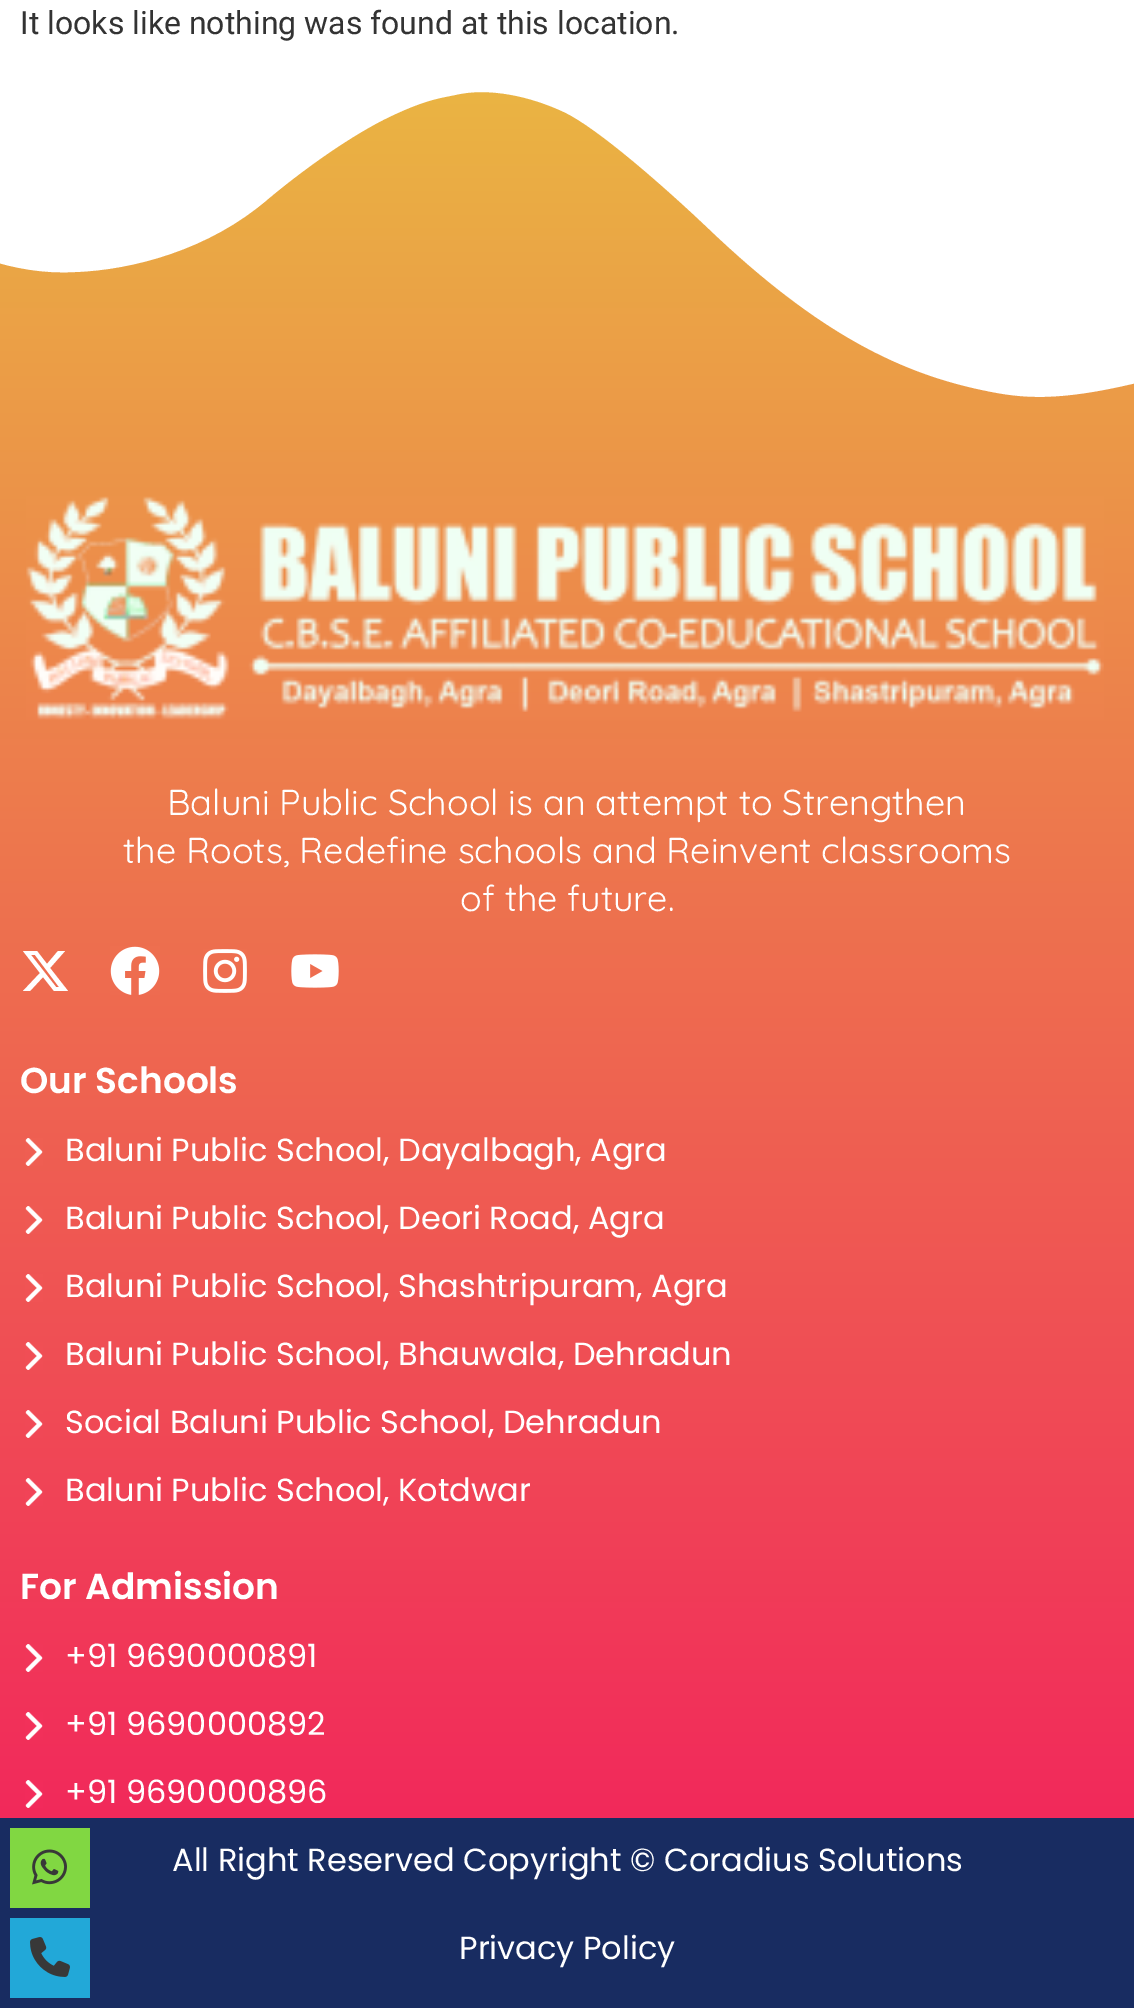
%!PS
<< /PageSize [1134 2008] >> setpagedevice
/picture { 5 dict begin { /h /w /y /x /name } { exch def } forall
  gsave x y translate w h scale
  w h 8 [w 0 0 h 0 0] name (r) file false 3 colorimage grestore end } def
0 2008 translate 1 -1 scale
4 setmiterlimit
1 setgray
0 0 1134 2008 rectfill
/Roboto-Regular [32 0 0 -32 0 0] selectfont
0.2 setgray
20 34 moveto (It looks like nothing was found at this location.) show
gsave newpath 0 92 moveto 1134 92 lineto 1134 1818 lineto 0 1818 lineto closepath clip newpath
<< /ShadingType 2 /ColorSpace /DeviceRGB /Coords [567 76 567 1818] /Extend [true true] /Function << /FunctionType 2 /Domain [0 1] /C0 [0.918 0.71 0.263] /C1 [0.949 0.161 0.357] /N 1 >> >> shfill grestore
gsave
0 76 1134 324 rectclip
1 setgray
newpath 455 95 moveto 488 87 530 96 564 112 curveto 598 128 667 189 709 229 curveto 819 334 902 374 987 391 curveto 1021 398 1057 402 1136 383 curveto 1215 363 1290 299 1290 299 curveto 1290 74 lineto -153 74 lineto -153 173 lineto -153 173 -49 279 75 272 curveto 132 270 209 250 268 199 curveto 299 173 344 140 383 120 curveto 423 100 440 98 455 95 curveto closepath fill
grestore
(img1.rgb) 26 496 1078 224 picture
/Quicksand-Regular [36 0 0 -36 0 0] selectfont
1 setgray
167 815 moveto (Baluni Public School is an attempt to Strengthen) show
123 863 moveto (the Roots, Redefine schools and Reinvent classrooms) show
460 911 moveto (of the future.) show
newpath 58 951 moveto 65 951 lineto 50 968 lineto 68 991 lineto 54 991 lineto 43 977 lineto 30 991 lineto 23 991 lineto 40 973 lineto 23 951 lineto 37 951 lineto 47 964 lineto closepath 56 987 moveto 59 987 lineto 35 955 lineto 31 955 lineto closepath fill
(img2.rgb) 110 946 50 49 picture
(img3.rgb) 203 949 44 44 picture
(img4.rgb) 291 954 48 34 picture
/Poppins-SemiBold [36 0 0 -36 0 0] selectfont
20 1093 moveto (Our Schools) show
(img5.rgb) 25 1138 18 28 picture
/Poppins-Regular [32 0 0 -32 0 0] selectfont
65 1161 moveto (Baluni Public School, Dayalbagh, Agra) show
(img6.rgb) 25 1206 18 28 picture
65 1229 moveto (Baluni Public School, Deori Road, Agra) show
(img7.rgb) 25 1274 18 28 picture
65 1297 moveto (Baluni Public School, Shashtripuram, Agra) show
(img8.rgb) 25 1342 18 28 picture
65 1365 moveto (Baluni Public School, Bhauwala, Dehradun) show
(img9.rgb) 25 1410 18 28 picture
65 1433 moveto (Social Baluni Public School, Dehradun) show
(img10.rgb) 25 1478 18 28 picture
65 1501 moveto (Baluni Public School, Kotdwar) show
/Poppins-SemiBold [36 0 0 -36 0 0] selectfont
20 1599 moveto (For Admission) show
(img11.rgb) 25 1644 18 28 picture
/Poppins-Regular [32 0 0 -32 0 0] selectfont
65 1667 moveto (+91 9690000891) show
(img12.rgb) 25 1712 18 28 picture
65 1735 moveto (+91 9690000892) show
(img13.rgb) 25 1780 18 28 picture
65 1803 moveto (+91 9690000896) show
0.094 0.173 0.38 setrgbcolor
0 1818 1134 190 rectfill
1 setgray
172 1871 moveto (All Right Reserved Copyright © Coradius Solutions) show
459 1959 moveto (Privacy Policy) show
0.506 0.843 0.259 setrgbcolor
10 1828 80 80 rectfill
(img14.rgb) 32 1849 35 36 picture
0.133 0.659 0.847 setrgbcolor
10 1918 80 80 rectfill
(img15.rgb) 30 1937 40 40 picture
showpage
